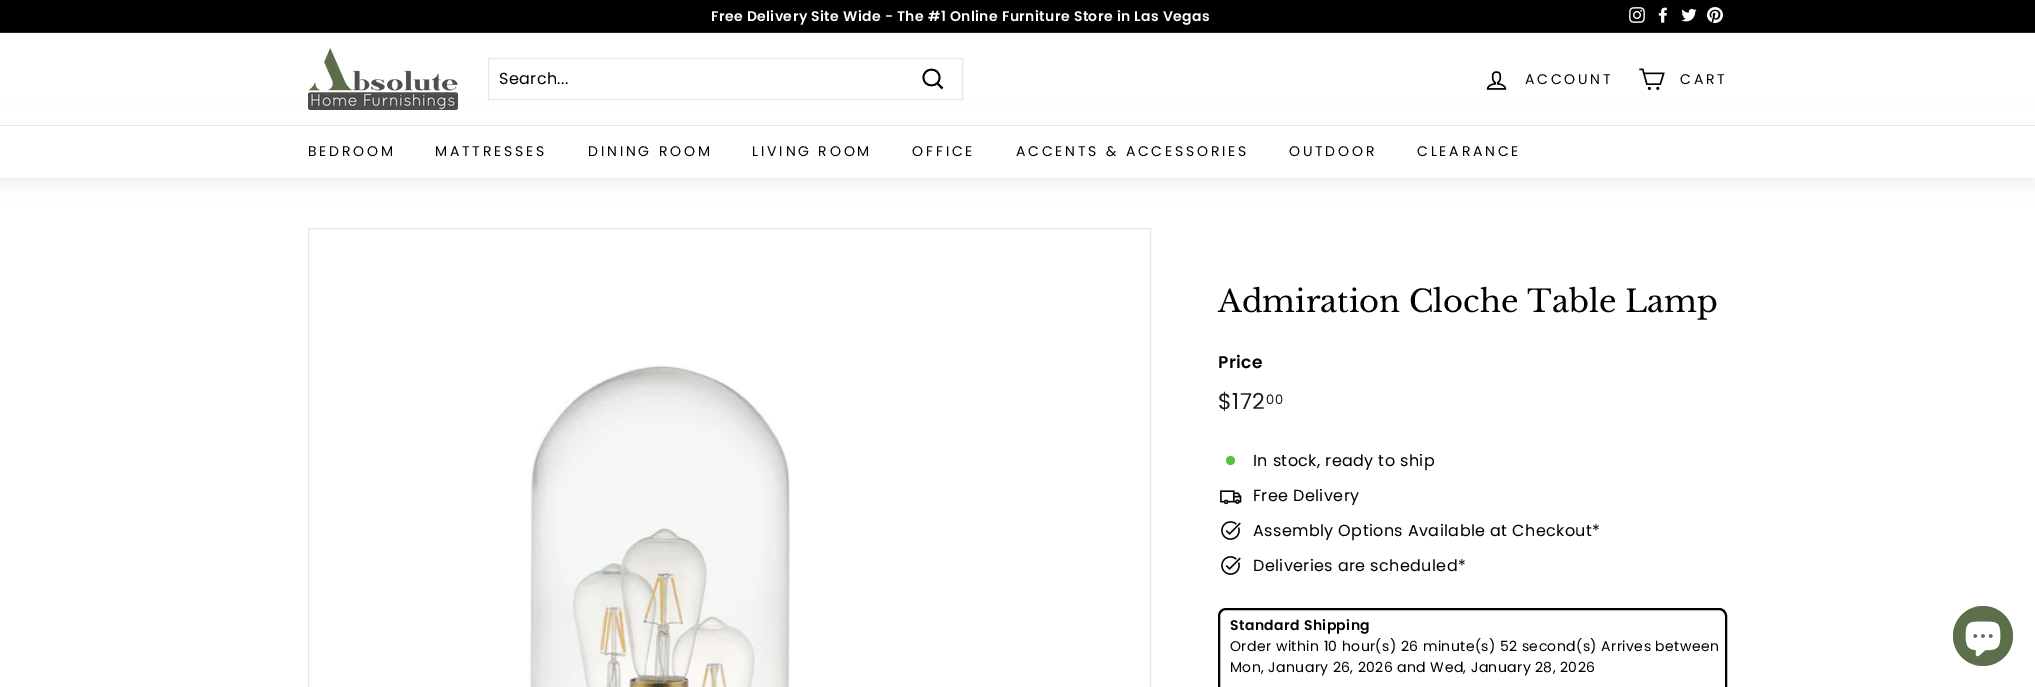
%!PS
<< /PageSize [2035 687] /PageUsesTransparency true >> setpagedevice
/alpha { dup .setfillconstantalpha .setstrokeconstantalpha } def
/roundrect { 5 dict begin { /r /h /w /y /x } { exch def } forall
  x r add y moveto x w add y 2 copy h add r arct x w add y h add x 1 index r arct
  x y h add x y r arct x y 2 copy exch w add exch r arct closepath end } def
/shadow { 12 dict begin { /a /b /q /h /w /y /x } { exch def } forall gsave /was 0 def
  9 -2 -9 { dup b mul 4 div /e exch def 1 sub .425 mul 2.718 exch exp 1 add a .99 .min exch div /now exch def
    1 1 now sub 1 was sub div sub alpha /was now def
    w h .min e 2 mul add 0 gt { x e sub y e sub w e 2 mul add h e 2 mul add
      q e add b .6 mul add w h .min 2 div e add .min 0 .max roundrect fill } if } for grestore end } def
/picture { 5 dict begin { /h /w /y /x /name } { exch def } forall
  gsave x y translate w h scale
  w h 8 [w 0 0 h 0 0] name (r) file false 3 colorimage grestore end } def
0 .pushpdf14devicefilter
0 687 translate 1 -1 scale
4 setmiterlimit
1 setgray
0 0 2035 687 rectfill
0 setgray
0 0 2035 32 rectfill
/Poppins-SemiBold [14 0 0 -14 0 0] selectfont
1 setgray
711 21 moveto 0.4 0 (Free Delivery Site Wide - The #1 Online Furniture Store in Las Vegas) ashow
(img1.rgb) 1629 7 16 16 picture
(img2.rgb) 1658 7 9 16 picture
(img3.rgb) 1681 8 16 14 picture
(img4.rgb) 1707 7 16 16 picture
0.149 setgray
0 32 2035 1 rectfill
0 setgray
0 125 2035 53 0 12.5 0.1 shadow
1 setgray
0 109 2035 16 rectfill
(img5.rgb) 308 48 150 62 picture
0.91 0.91 0.882 setrgbcolor
488.5 58.5 474 41 rectstroke
/Poppins-Regular [16 0 0 -16 0 0] selectfont
0 setgray
499 84 moveto 0.4 0 (Search...) ashow
1.8 setlinewidth
newpath 939.5 77.5 moveto 939.5 88 923.5 88 923.5 77.5 curveto 923.5 67 939.5 67 939.5 77.5 curveto closepath 942.5 88.5 moveto 937.5 83.5 lineto stroke
(img6.rgb) 1486 71 21 19 picture
/Poppins-Regular [14 0 0 -14 0 0] selectfont
1525 84 moveto 2.8 0 (ACCOUNT) ashow
(img7.rgb) 1639 68 26 22 picture
1680 84 moveto 2.8 0 (CART) ashow
1 setgray
0 126 2035 52 rectfill
0.902 setgray
0 125 2035 1 rectfill
0 setgray
308 156 moveto 2.8 0 (BEDROOM) ashow
435 156 moveto 2.8 0 (MATTRESSES) ashow
588 156 moveto 2.8 0 (DINING ROOM) ashow
752 156 moveto 2.8 0 (LIVING ROOM) ashow
912 156 moveto 2.8 0 (OFFICE) ashow
1016 156 moveto 2.8 0 (ACCENTS & ACCESSORIES) ashow
1289 156 moveto 2.8 0 (OUTDOOR) ashow
1417 156 moveto 2.8 0 (CLEARANCE) ashow
0.91 0.91 0.882 setrgbcolor
1 setlinewidth
308.5 228.5 842 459 rectstroke
(img8.rgb) 529 365 261 322 picture
/LibreBaskerville-Regular [30.6 0 0 -30.6 0 0] selectfont
0 setgray
1218 312 moveto (Admiration Cloche Table Lamp) show
/Poppins-SemiBold [17 0 0 -17 0 0] selectfont
1218 368 moveto 0.4 0 (Price) ashow
/Poppins-Regular [22 0 0 -22 0 0] selectfont
0.11 0.114 0.114 setrgbcolor
1218 409 moveto 0.4 0 ($172) ashow
/Poppins-Regular [13 0 0 -13 0 0] selectfont
1266 404 moveto 0.4 0 (00) ashow
0.329 0.776 0.227 setrgbcolor
newpath 1230.5 460.5 4.5 0 360 arc closepath fill
/Poppins-Regular [16 0 0 -16 0 0] selectfont
0 setgray
1253 466 moveto 0.4 0 (In stock, ready to ship) ashow
(img9.rgb) 1220 490 22 15 picture
1253 501 moveto 0.4 0 (Free Delivery) ashow
(img10.rgb) 1221 521 20 19 picture
1253 536 moveto 0.4 0 (Assembly Options Available at Checkout*) ashow
(img10.rgb) 1221 556 20 19 picture
1253 571 moveto 0.4 0 (Deliveries are scheduled*) ashow
2 setlinewidth
1219 609 507 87 7 roundrect stroke
/Poppins-SemiBold [14 0 0 -14 0 0] selectfont
1230 630 moveto 0.4 0 (Standard Shipping) ashow
/Poppins-Regular [14 0 0 -14 0 0] selectfont
1230 651 moveto 0.4 0 (Order within 10 hour\(s\) 26 minute\(s\) 52 second\(s\) Arrives between) ashow
1230 672 moveto 0.4 0 (Mon, January 26, 2026 and Wed, January 28, 2026) ashow
0.365 0.431 0.29 setrgbcolor
newpath 1983 636 30 0 360 arc closepath fill
(img11.rgb) 1965 621 36 36 picture
.poppdf14devicefilter showpage
